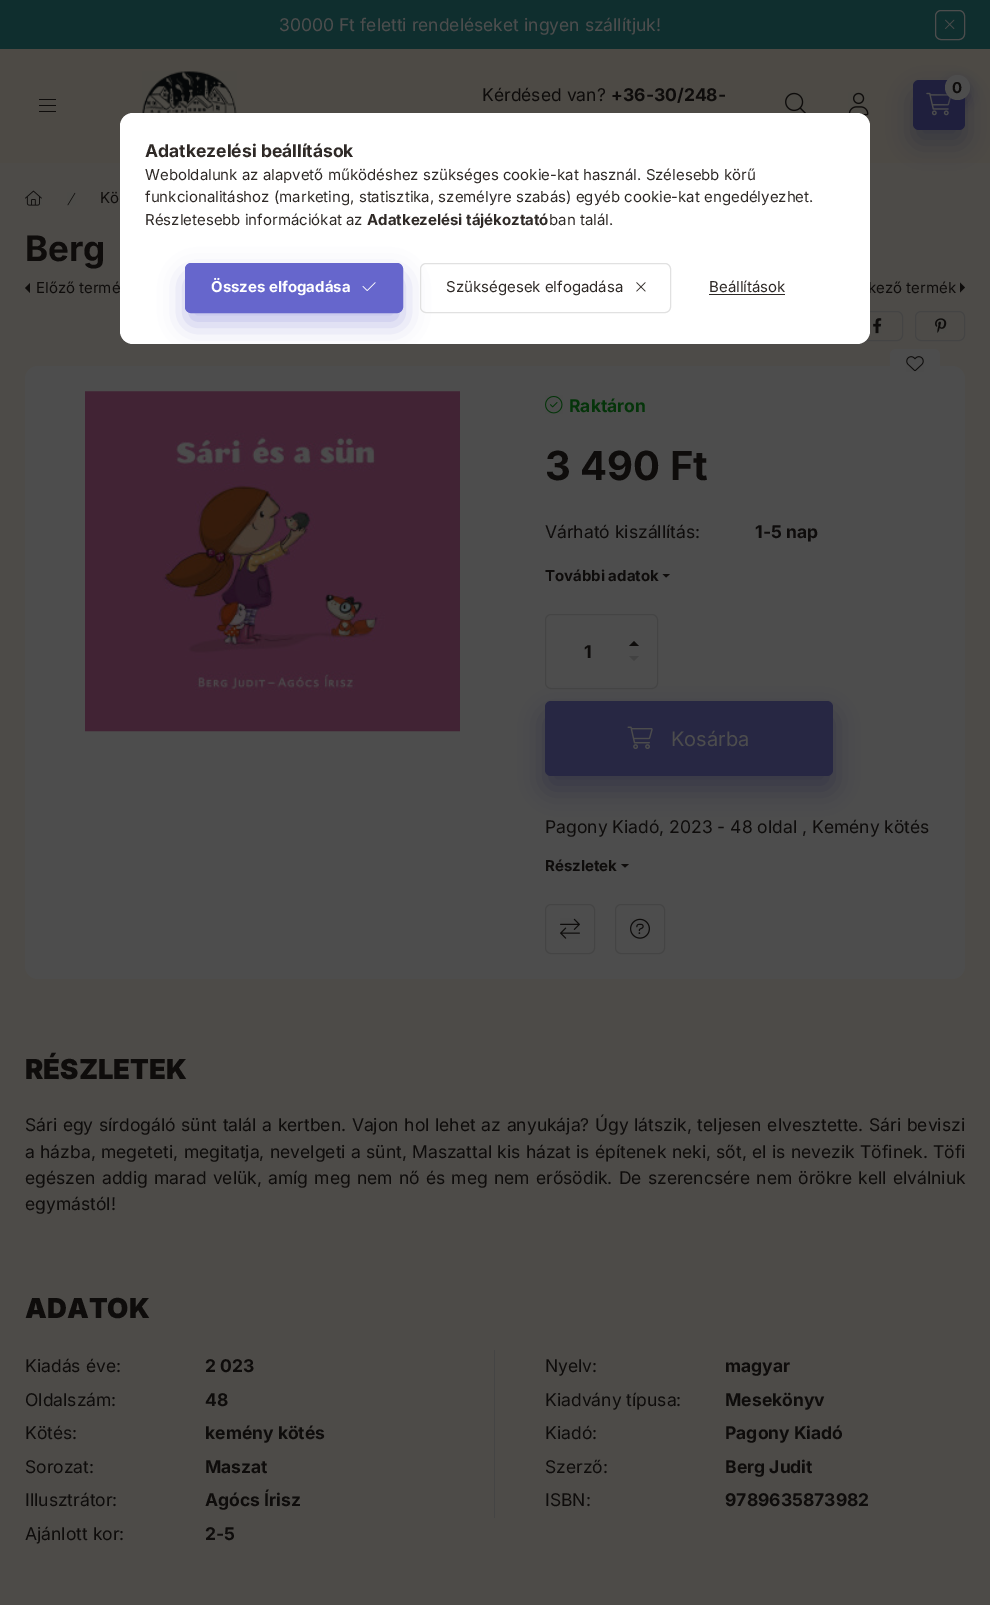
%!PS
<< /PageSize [990 1605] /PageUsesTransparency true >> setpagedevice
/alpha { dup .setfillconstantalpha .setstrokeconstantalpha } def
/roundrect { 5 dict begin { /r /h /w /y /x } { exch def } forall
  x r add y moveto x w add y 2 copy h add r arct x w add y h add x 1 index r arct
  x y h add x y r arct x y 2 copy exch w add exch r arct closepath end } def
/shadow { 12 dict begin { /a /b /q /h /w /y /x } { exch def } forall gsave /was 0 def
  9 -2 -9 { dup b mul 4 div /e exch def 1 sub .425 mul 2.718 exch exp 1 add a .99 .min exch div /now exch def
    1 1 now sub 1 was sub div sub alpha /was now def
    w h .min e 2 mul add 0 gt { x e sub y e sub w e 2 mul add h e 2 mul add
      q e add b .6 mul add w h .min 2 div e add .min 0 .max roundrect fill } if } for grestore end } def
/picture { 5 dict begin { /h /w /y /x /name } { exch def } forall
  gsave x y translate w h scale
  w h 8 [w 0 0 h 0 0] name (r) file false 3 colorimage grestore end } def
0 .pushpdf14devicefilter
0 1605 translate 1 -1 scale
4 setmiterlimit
0.302 0.294 0.282 setrgbcolor
0 0 990 1605 rectfill
0.059 0.18 0.18 setrgbcolor
0 0 990 49 rectfill
/Inter-Regular [17.5 0 0 -17.5 0 0] selectfont
0.302 setgray
279 31 moveto (30000 Ft feletti rendeléseket ingyen szállítjuk!) show
935.5 10.5 29 29 5.5 roundrect stroke
(img1.rgb) 945 19 10 10 picture
0.302 0.29 0.271 setrgbcolor
0 49 990 114 rectfill
(img2.rgb) 142 71 95 42 picture
0.055 0.047 0.043 setrgbcolor
482 101 moveto (Kérdésed van?) show
/Inter-Bold [17.5 0 0 -17.5 0 0] selectfont
611 101 moveto (+36-30/248-) show
39 99 17 1 rectfill
39 105 17 1 rectfill
39 111 17 1 rectfill
0.122 0.122 0.239 setrgbcolor
913 93 52 50 6 12.5 0.4 shadow
913 80 52 50 6 roundrect fill
(img3.rgb) 926 92 25 24 picture
945 81 25 25 12.5 6 0.4 shadow
0.302 setgray
newpath 957.5 87.5 12.5 0 360 arc closepath fill
/Inter-Bold [15 0 0 -15 0 0] selectfont
0.055 0.047 0.043 setrgbcolor
952 93 moveto (0) show
(img4.rgb) 785 92 21 21 picture
(img5.rgb) 848 92 21 24 picture
(img6.rgb) 25 190 17 16 picture
(img7.rgb) 67 192 9 14 picture
/Inter-Regular [15 0 0 -15 0 0] selectfont
100 203 moveto (Kö) show
/Inter-Bold [35 0 0 -35 0 0] selectfont
25 261 moveto (Berg) show
newpath 30 293 moveto 30 283 lineto 25 288 lineto closepath fill
/Inter-Regular [15 0 0 -15 0 0] selectfont
36 293 moveto (Előző termé) show
868 293 moveto (kező termék) show
newpath 960 292.5 moveto 960 282.5 lineto 965 287.5 lineto closepath fill
0.267 setgray
853.5 311.5 49 29 5.5 roundrect stroke
(img8.rgb) 873 318 9 16 picture
915.5 311.5 49 29 5.5 roundrect stroke
(img9.rgb) 935 318 12 15 picture
0.302 setgray
25 366 940 613 13 roundrect fill
890 349 50 30 6 roundrect fill
(img10.rgb) 906 356 18 16 picture
(img11.rgb) 85 391 375 341 picture
(img12.rgb) 545 395 18 19 picture
/Inter-Bold [17.5 0 0 -17.5 0 0] selectfont
0.02 0.204 0.039 setrgbcolor
569 412 moveto (Raktáron) show
/Inter-Bold [40 0 0 -40 0 0] selectfont
0.055 0.047 0.043 setrgbcolor
545 480 moveto (3 490 Ft) show
/Inter-Regular [17.5 0 0 -17.5 0 0] selectfont
545 538 moveto (Várható kiszállítás:) show
/Inter-Bold [17.5 0 0 -17.5 0 0] selectfont
755 538 moveto (1-5 nap) show
/Inter-Bold [15 0 0 -15 0 0] selectfont
545 581 moveto (További adatok) show
newpath 662.5 574 moveto 670 574 lineto 666 577.5 lineto closepath fill
0.267 setgray
545.5 614.5 112 74 5.5 roundrect stroke
/Inter-Bold [17.5 0 0 -17.5 0 0] selectfont
0.055 0.047 0.043 setrgbcolor
584 658 moveto (1) show
newpath 639 646 moveto 629 646 lineto 634 641 lineto closepath fill
0.259 setgray
newpath 629 656 moveto 639 656 lineto 634 661 lineto closepath fill
0.122 0.122 0.239 setrgbcolor
545 714 288 75 6 12.5 0.4 shadow
0.153 0.153 0.263 setrgbcolor
545 701 288 75 6 roundrect fill
(img13.rgb) 627 726 26 23 picture
/Inter-Regular [20 0 0 -20 0 0] selectfont
0.302 setgray
671 746 moveto (Kosárba) show
/Inter-Regular [17.5 0 0 -17.5 0 0] selectfont
0.055 0.047 0.043 setrgbcolor
545 833 moveto (Pagony Kiadó, 2023 - 48 oldal , Kemény kötés) show
/Inter-Bold [15 0 0 -15 0 0] selectfont
545 871 moveto (Részletek) show
newpath 621 864 moveto 629 864 lineto 625 867.5 lineto closepath fill
0.267 setgray
545.5 904.5 49 49 5.5 roundrect stroke
(img14.rgb) 560 918 20 21 picture
615.5 904.5 49 49 5.5 roundrect stroke
(img15.rgb) 630 918 20 21 picture
/Inter-Black [27.5 0 0 -27.5 0 0] selectfont
0.055 0.047 0.043 setrgbcolor
25 1079 moveto (RÉSZLETEK) show
/Inter-Regular [17.5 0 0 -17.5 0 0] selectfont
25 1131 moveto 0.75 0 32 (Sári egy sírdogáló sünt talál a kertben. Vajon hol lehet az anyukája? Úgy látszik, teljesen elvesztette. Sári beviszi) widthshow
25 1158 moveto 0.4 0 32 (a házba, megeteti, megitatja, nevelgeti a sünt, Maszattal kis házat is építenek neki, sőt, el is nevezik Töfinek. Töfi) widthshow
25 1184 moveto 1.25 0 32 (egészen addig marad velük, amíg meg nem nő és meg nem erősödik. De szerencsére nem örökre kell elválniuk) widthshow
25 1210 moveto (egymástól!) show
/Inter-Black [27.5 0 0 -27.5 0 0] selectfont
25 1318 moveto (ADATOK) show
0.267 setgray
494 1350 1 168 rectfill
/Inter-Regular [17.5 0 0 -17.5 0 0] selectfont
0.055 0.047 0.043 setrgbcolor
25 1372 moveto (Kiadás éve:) show
/Inter-Bold [17.5 0 0 -17.5 0 0] selectfont
205 1372 moveto (2 023) show
/Inter-Regular [17.5 0 0 -17.5 0 0] selectfont
545 1372 moveto (Nyelv:) show
/Inter-Bold [17.5 0 0 -17.5 0 0] selectfont
725 1372 moveto (magyar) show
/Inter-Regular [17.5 0 0 -17.5 0 0] selectfont
25 1406 moveto (Oldalszám:) show
/Inter-Bold [17.5 0 0 -17.5 0 0] selectfont
205 1406 moveto (48) show
/Inter-Regular [17.5 0 0 -17.5 0 0] selectfont
545 1406 moveto (Kiadvány típusa:) show
/Inter-Bold [17.5 0 0 -17.5 0 0] selectfont
725 1406 moveto (Mesekönyv) show
/Inter-Regular [17.5 0 0 -17.5 0 0] selectfont
25 1439 moveto (Kötés:) show
/Inter-Bold [17.5 0 0 -17.5 0 0] selectfont
205 1439 moveto (kemény kötés) show
/Inter-Regular [17.5 0 0 -17.5 0 0] selectfont
545 1439 moveto (Kiadó:) show
/Inter-Bold [17.5 0 0 -17.5 0 0] selectfont
725 1439 moveto (Pagony Kiadó) show
/Inter-Regular [17.5 0 0 -17.5 0 0] selectfont
25 1473 moveto (Sorozat:) show
/Inter-Bold [17.5 0 0 -17.5 0 0] selectfont
205 1473 moveto (Maszat) show
/Inter-Regular [17.5 0 0 -17.5 0 0] selectfont
545 1473 moveto (Szerző:) show
/Inter-Bold [17.5 0 0 -17.5 0 0] selectfont
725 1473 moveto (Berg Judit) show
/Inter-Regular [17.5 0 0 -17.5 0 0] selectfont
25 1506 moveto (Illusztrátor:) show
/Inter-Bold [17.5 0 0 -17.5 0 0] selectfont
205 1506 moveto (Agócs Írisz) show
/Inter-Regular [17.5 0 0 -17.5 0 0] selectfont
545 1506 moveto (ISBN:) show
/Inter-Bold [17.5 0 0 -17.5 0 0] selectfont
725 1506 moveto (9789635873982) show
/Inter-Regular [17.5 0 0 -17.5 0 0] selectfont
25 1540 moveto (Ajánlott kor:) show
/Inter-Bold [17.5 0 0 -17.5 0 0] selectfont
205 1540 moveto (2-5) show
1 setgray
120 113 750 231 13 roundrect fill
0.18 0.161 0.149 setrgbcolor
145 157 moveto (Adatkezelési beállítások) show
/Inter-Regular [15 0 0 -15 0 0] selectfont
145 180 moveto (Weboldalunk az alapvető működéshez szükséges cookie-kat használ. Szélesebb körű) show
145 202 moveto (funkcionalitáshoz \(marketing, statisztika, személyre szabás\) egyéb cookie-kat engedélyezhet.) show
145 225 moveto (Részletesebb információkat az) show
/Inter-Bold [15 0 0 -15 0 0] selectfont
367 225 moveto (Adatkezelési tájékoztató) show
/Inter-Regular [15 0 0 -15 0 0] selectfont
549 225 moveto (ban talál.) show
gsave
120 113 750 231 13 roundrect clip newpath
0.4 0.4 0.8 setrgbcolor
185 275 218 50 6 12.5 0.4 shadow
grestore
0.4 0.4 0.8 setrgbcolor
185.5 263.5 217 49 5.5 roundrect gsave fill grestore
stroke
/Inter-Bold [15 0 0 -15 0 0] selectfont
1 setgray
211 292 moveto (Összes elfogadása) show
(img16.rgb) 362 282 14 9 picture
0.882 setgray
420.5 263.5 250 49 5.5 roundrect stroke
/Inter-Regular [15 0 0 -15 0 0] selectfont
0.18 0.161 0.149 setrgbcolor
446 292 moveto (Szükségesek elfogadása) show
(img17.rgb) 636 282 10 10 picture
709 292 moveto (Beállítások) show
709 294 76 1 rectfill
.poppdf14devicefilter showpage
